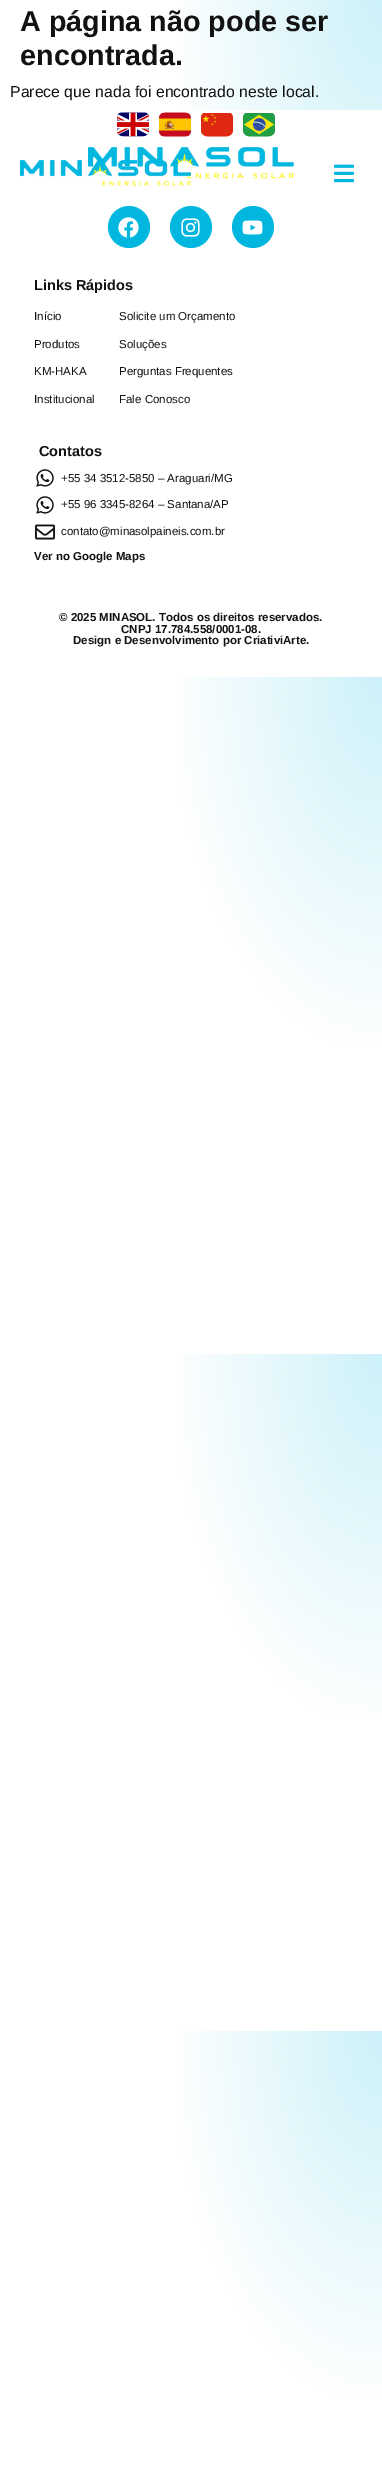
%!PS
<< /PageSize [382 2466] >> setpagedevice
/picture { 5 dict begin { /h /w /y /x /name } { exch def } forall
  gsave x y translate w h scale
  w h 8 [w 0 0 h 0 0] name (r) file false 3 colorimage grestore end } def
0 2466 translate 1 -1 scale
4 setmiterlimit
1 setgray
0 0 382 2466 rectfill
gsave newpath 177 0 moveto 382 0 lineto 382 110 lineto 177 110 lineto closepath clip newpath 382 0 translate 540 957 scale
<< /ShadingType 3 /ColorSpace /DeviceRGB /Coords [0 0 0 0 0 1] /Extend [true true] /Function << /FunctionType 3 /Domain [0 1] /Functions [<< /FunctionType 2 /Domain [0 1] /C0 [0.804 0.945 0.976] /C1 [1 1 1] /N 1 >> << /FunctionType 2 /Domain [0 1] /C0 [1 1 1] /C1 [1 1 1] /N 1 >>] /Bounds [0.4] /Encode [0 1 0 1] >> >> shfill grestore
gsave newpath 177 677 moveto 382 677 lineto 382 1041 lineto 177 1041 lineto closepath clip newpath 382 677 translate 540 957 scale
<< /ShadingType 3 /ColorSpace /DeviceRGB /Coords [0 0 0 0 0 1] /Extend [true true] /Function << /FunctionType 3 /Domain [0 1] /Functions [<< /FunctionType 2 /Domain [0 1] /C0 [0.804 0.945 0.976] /C1 [1 1 1] /N 1 >> << /FunctionType 2 /Domain [0 1] /C0 [1 1 1] /C1 [1 1 1] /N 1 >>] /Bounds [0.4] /Encode [0 1 0 1] >> >> shfill grestore
gsave newpath 177 1354 moveto 382 1354 lineto 382 1718 lineto 177 1718 lineto closepath clip newpath 382 1354 translate 540 957 scale
<< /ShadingType 3 /ColorSpace /DeviceRGB /Coords [0 0 0 0 0 1] /Extend [true true] /Function << /FunctionType 3 /Domain [0 1] /Functions [<< /FunctionType 2 /Domain [0 1] /C0 [0.804 0.945 0.976] /C1 [1 1 1] /N 1 >> << /FunctionType 2 /Domain [0 1] /C0 [1 1 1] /C1 [1 1 1] /N 1 >>] /Bounds [0.4] /Encode [0 1 0 1] >> >> shfill grestore
gsave newpath 177 2031 moveto 382 2031 lineto 382 2396 lineto 177 2396 lineto closepath clip newpath 382 2031 translate 540 957 scale
<< /ShadingType 3 /ColorSpace /DeviceRGB /Coords [0 0 0 0 0 1] /Extend [true true] /Function << /FunctionType 3 /Domain [0 1] /Functions [<< /FunctionType 2 /Domain [0 1] /C0 [0.804 0.945 0.976] /C1 [1 1 1] /N 1 >> << /FunctionType 2 /Domain [0 1] /C0 [1 1 1] /C1 [1 1 1] /N 1 >>] /Bounds [0.4] /Encode [0 1 0 1] >> >> shfill grestore
/LiberationSans-Bold [28.75 0 0 -28.75 0 0] selectfont
0.071 setgray
20 31 moveto (A página não pode ser) show
20 65 moveto (encontrada.) show
/LiberationSans-Regular [15.8 0 0 -15.8 0 0] selectfont
10 97 moveto (Parece que nada foi encontrado neste local.) show
(img1.rgb) 117 112 32 25 picture
(img2.rgb) 159 112 32 25 picture
(img3.rgb) 201 113 32 24 picture
(img4.rgb) 243 113 32 24 picture
(img7.rgb) 88 147 206 32 picture
(img5.rgb) 20 160 171 26 picture
(img6.rgb) 334 164 20 19 picture
0.004 0.718 0.875 setrgbcolor
newpath 129 227 21 0 360 arc closepath fill
(img8.rgb) 118 217 21 21 picture
newpath 191 227 21 0 360 arc closepath fill
(img9.rgb) 181 218 19 19 picture
newpath 253 227 21 0 360 arc closepath fill
(img10.rgb) 242 220 21 15 picture
/LiberationSans-Bold [14.5 0 0 -14.5 0 0] selectfont
0.071 setgray
34 290 moveto (Links Rápidos) show
/LiberationSans-Regular [11.5 0 0 -11.5 0 0] selectfont
34 320 moveto (Início) show
34 348 moveto (Produtos) show
34 375 moveto (KM-HAKA) show
34 403 moveto (Institucional) show
119 320 moveto (Solicite um Orçamento) show
119 348 moveto (Soluções) show
119 375 moveto (Perguntas Frequentes) show
119 403 moveto (Fale Conosco) show
/LiberationSans-Bold [14.5 0 0 -14.5 0 0] selectfont
39 456 moveto (Contatos) show
(img11.rgb) 36 469 18 18 picture
/LiberationSans-Regular [11.5 0 0 -11.5 0 0] selectfont
61 482 moveto (+55 34 3512-5850 – Araguari/MG) show
(img11.rgb) 36 496 18 18 picture
61 508 moveto (+55 96 3345-8264 – Santana/AP) show
(img12.rgb) 35 524 20 16 picture
61 535 moveto (contato@minasolpaineis.com.br) show
/LiberationSans-Bold [11.5 0 0 -11.5 0 0] selectfont
34 560 moveto (Ver no Google Maps) show
59 621 moveto (© 2025 MINASOL. Todos os direitos reservados.) show
121 633 moveto (CNPJ 17.784.558/0001-08.) show
73 644 moveto (Design e Desenvolvimento por CriativiArte.) show
showpage
